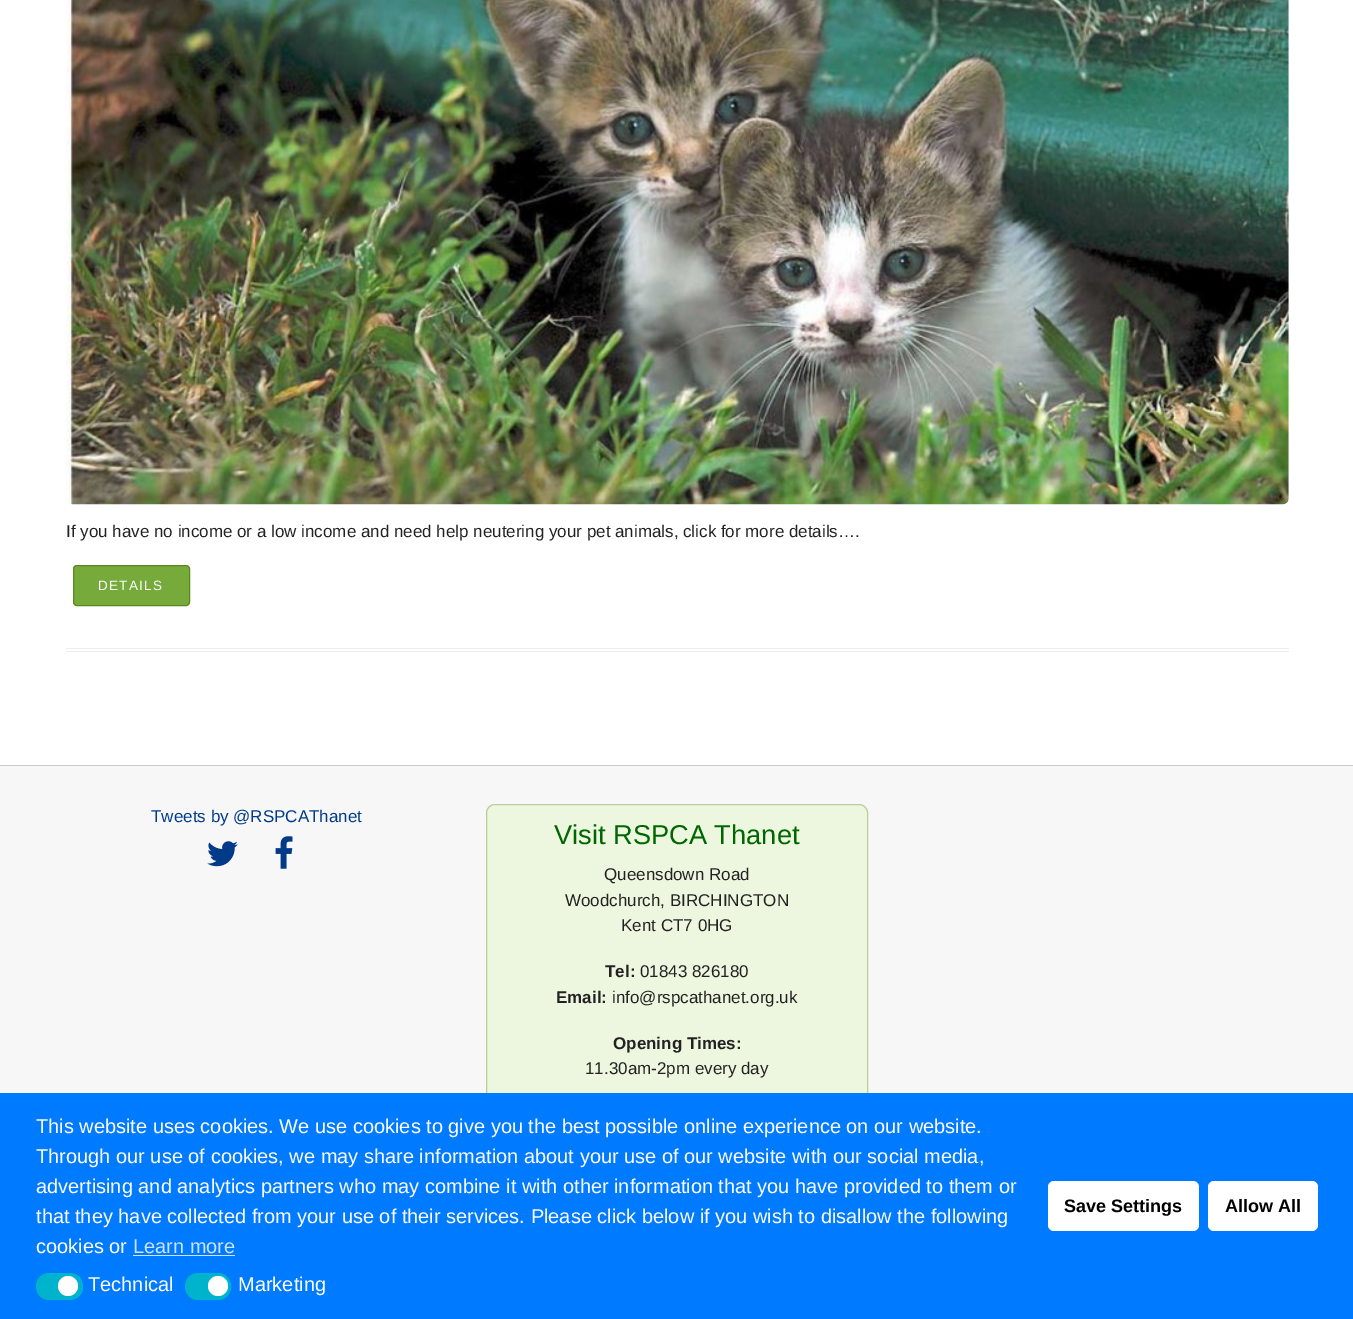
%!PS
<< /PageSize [1353 1319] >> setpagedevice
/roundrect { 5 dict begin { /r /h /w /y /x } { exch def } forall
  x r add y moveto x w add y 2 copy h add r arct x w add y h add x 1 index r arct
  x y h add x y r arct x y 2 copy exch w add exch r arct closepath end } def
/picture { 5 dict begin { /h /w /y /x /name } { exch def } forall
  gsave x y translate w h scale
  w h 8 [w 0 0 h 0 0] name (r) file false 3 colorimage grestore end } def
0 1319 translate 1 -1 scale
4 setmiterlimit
1 setgray
0 0 1353 1319 rectfill
(img1.rgb) 66 0 1223 505 picture
/LiberationSans-Regular [17 0 0 -17 0 0] selectfont
0.133 setgray
66 537 moveto (If you have no income or a low income and need help neutering your pet animals, click for more details….) show
0.463 0.671 0.231 setrgbcolor
73.5 565.5 116 40 3.5 roundrect gsave fill grestore
0.353 0.533 0.114 setrgbcolor
stroke
/LiberationSans-Regular [13.5 0 0 -13.5 0 0] selectfont
1 setgray
98 590 moveto 1.25 0 (DETAILS) ashow
0.933 setgray
66 648 1223 1 rectfill
66 651 1223 1 rectfill
0.969 setgray
0 766 1353 327 rectfill
0.8 setgray
0 765 1353 1 rectfill
/LiberationSans-Regular [17 0 0 -17 0 0] selectfont
0 0.227 0.533 setrgbcolor
151 822 moveto (Tweets by @RSPCAThanet) show
(img2.rgb) 207 841 31 26 picture
(img3.rgb) 275 836 18 33 picture
0.929 0.965 0.875 setrgbcolor
486 804 382 334 9 roundrect fill
0.945 0.973 0.898 setrgbcolor
newpath 495 806 moveto 859 806 lineto 863 806 866 809 866 814 curveto 866 809 863 805 858 805 curveto 496 805 lineto 491 805 488 809 488 814 curveto 488 809 491 806 495 806 curveto closepath fill
0.722 0.804 0.592 setrgbcolor
486.5 804.5 381 333 8.5 roundrect stroke
/LiberationSans-Regular [27.25 0 0 -27.25 0 0] selectfont
0 0.4 0 setrgbcolor
554 844 moveto (Visit RSPCA Thanet) show
/LiberationSans-Regular [17 0 0 -17 0 0] selectfont
0.133 setgray
604 880 moveto (Queensdown Road) show
565 906 moveto (Woodchurch, BIRCHINGTON) show
621 931 moveto (Kent CT7 0HG) show
/LiberationSans-Bold [17 0 0 -17 0 0] selectfont
605 977 moveto (Tel:) show
/LiberationSans-Regular [17 0 0 -17 0 0] selectfont
640 977 moveto (01843 826180) show
/LiberationSans-Bold [17 0 0 -17 0 0] selectfont
556 1003 moveto (Email:) show
/LiberationSans-Regular [17 0 0 -17 0 0] selectfont
612 1003 moveto (info@rspcathanet.org.uk) show
/LiberationSans-Bold [17 0 0 -17 0 0] selectfont
613 1049 moveto (Opening Times:) show
/LiberationSans-Regular [17 0 0 -17 0 0] selectfont
585 1074 moveto (11.30am-2pm every day) show
0 0.478 1 setrgbcolor
0 1093 1353 226 rectfill
/LiberationSans-Regular [20 0 0 -20 0 0] selectfont
1 setgray
36 1133 moveto (This website uses cookies. We use cookies to give you the best possible online experience on our website.) show
36 1163 moveto (Through our use of cookies, we may share information about your use of our website with our social media,) show
36 1193 moveto (advertising and analytics partners who may combine it with other information that you have provided to them or) show
36 1223 moveto (that they have collected from your use of their services. Please click below if you wish to disallow the following) show
36 1253 moveto (cookies or) show
0.8 0.894 1 setrgbcolor
133 1253 moveto (Learn more) show
133 1255 102 1 rectfill
0 0.702 0.8 setrgbcolor
36 1273 47 27 13 roundrect fill
1 setgray
newpath 68 1286 10 0 360 arc closepath fill
88 1291 moveto (Technical) show
0 0.702 0.8 setrgbcolor
185 1273 46 27 13 roundrect fill
1 setgray
newpath 218 1286 10 0 360 arc closepath fill
238 1291 moveto (Marketing) show
1048 1181 151 50 6 roundrect fill
/LiberationSans-Bold [18 0 0 -18 0 0] selectfont
0 setgray
1064 1212 moveto (Save Settings) show
1 setgray
1208 1181 110 50 6 roundrect fill
0 setgray
1225 1212 moveto (Allow All) show
showpage
